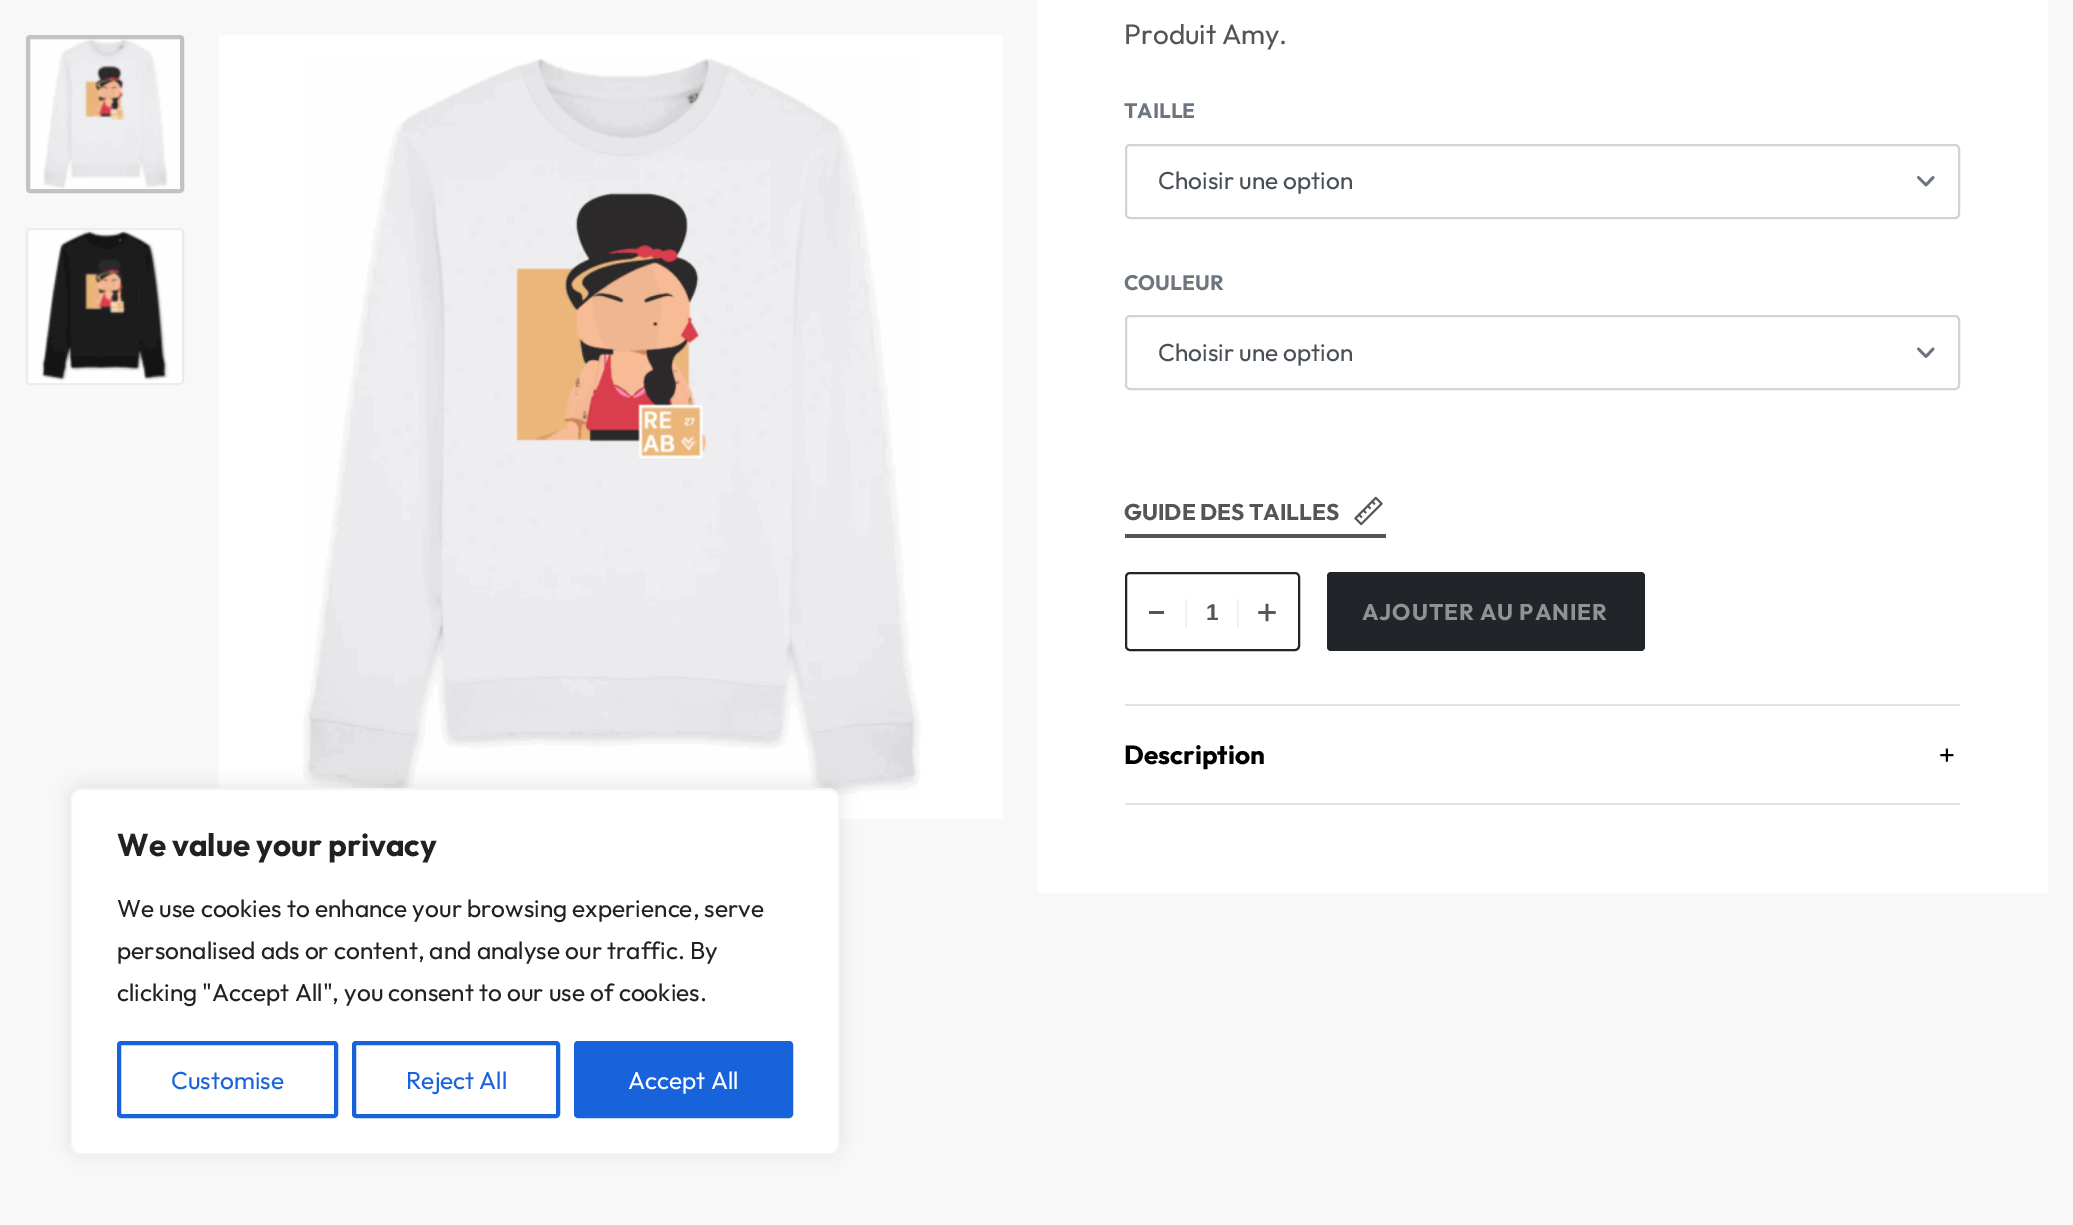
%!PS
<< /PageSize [2073 1225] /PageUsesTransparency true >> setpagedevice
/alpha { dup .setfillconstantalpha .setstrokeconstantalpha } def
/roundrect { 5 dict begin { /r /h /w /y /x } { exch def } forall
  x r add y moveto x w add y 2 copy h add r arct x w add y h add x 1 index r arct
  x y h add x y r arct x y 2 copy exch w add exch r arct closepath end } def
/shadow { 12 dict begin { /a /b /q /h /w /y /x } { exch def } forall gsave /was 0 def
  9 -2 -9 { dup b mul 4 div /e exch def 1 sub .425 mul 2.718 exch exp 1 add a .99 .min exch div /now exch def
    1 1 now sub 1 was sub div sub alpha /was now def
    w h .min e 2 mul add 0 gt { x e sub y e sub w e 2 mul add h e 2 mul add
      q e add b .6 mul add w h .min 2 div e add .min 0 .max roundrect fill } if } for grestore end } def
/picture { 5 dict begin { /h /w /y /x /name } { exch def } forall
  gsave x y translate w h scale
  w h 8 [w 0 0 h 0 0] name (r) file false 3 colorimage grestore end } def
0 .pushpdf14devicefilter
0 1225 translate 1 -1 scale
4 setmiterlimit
0.973 setgray
0 0 2073 1225 rectfill
0.976 0.98 0.984 setrgbcolor
26 35 158 158 4 roundrect fill
(img1.rgb) 26 35 157 157 picture
0.35 alpha
0.325 0.333 0.341 setrgbcolor
4 setlinewidth
28 37 154 154 2 roundrect stroke
1 alpha
0.976 0.98 0.984 setrgbcolor
26 228 158 157 4 roundrect fill
(img2.rgb) 27 228 156 157 picture
0.1 alpha
0.325 0.333 0.341 setrgbcolor
2 setlinewidth
27 229 156 155 3 roundrect stroke
1 alpha
1 setgray
219 35 784 784 rectfill
(img3.rgb) 302 58 619 741 picture
1038 0 1010 893 rectfill
/Outfit-Thin [28 0 0 -28 0 0] selectfont
0.325 0.333 0.341 setrgbcolor
1124 44 moveto (Produit Amy.) show
/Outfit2-Thin [21 0 0 -21 0 0] selectfont
0.427 0.459 0.494 setrgbcolor
1124 118 moveto (TAILLE) show
0.42 0.447 0.502 setrgbcolor
2.8 setlinewidth
1 setlinecap
1 setlinejoin
newpath 1918.5 177.5 moveto 1926 185 lineto 1933 177.5 lineto stroke
0.808 0.831 0.855 setrgbcolor
2 setlinewidth
0 setlinecap
0 setlinejoin
1126 145 833 73 4 roundrect stroke
/Outfit-Thin [24.5 0 0 -24.5 0 0] selectfont
0.282 0.31 0.337 setrgbcolor
1158 189 moveto (Choisir une option) show
/Outfit2-Thin [21 0 0 -21 0 0] selectfont
0.427 0.459 0.494 setrgbcolor
1124 290 moveto (COULEUR) show
0.42 0.447 0.502 setrgbcolor
2.8 setlinewidth
1 setlinecap
1 setlinejoin
newpath 1918.5 349 moveto 1926 356.5 lineto 1933 349 lineto stroke
0.808 0.831 0.855 setrgbcolor
2 setlinewidth
0 setlinecap
0 setlinejoin
1126 316 833 73 4 roundrect stroke
/Outfit-Thin [24.5 0 0 -24.5 0 0] selectfont
0.282 0.31 0.337 setrgbcolor
1158 361 moveto (Choisir une option) show
/Outfit2-Thin [22.75 0 0 -22.75 0 0] selectfont
0.325 0.333 0.341 setrgbcolor
1124 520 moveto (GUIDE DES TAILLES) show
(img4.rgb) 1354 496 29 30 picture
1125 534 261 4 rectfill
0.129 0.145 0.161 setrgbcolor
1126 573 173 77 4 roundrect stroke
0.325 0.333 0.341 setrgbcolor
1149 611 15 3 rectfill
0.945 0.945 0.949 setrgbcolor
1185 599 2 28 rectfill
/LiberationSans-Bold [22.75 0 0 -22.75 0 0] selectfont
0.325 0.333 0.341 setrgbcolor
1206 620 moveto (1) show
0.945 0.945 0.949 setrgbcolor
1237 599 2 28 rectfill
(img5.rgb) 1258 603 18 19 picture
0.129 0.145 0.161 setrgbcolor
1327 572 318 79 4 roundrect fill
/Outfit2-Thin [22.75 0 0 -22.75 0 0] selectfont
0.565 0.573 0.58 setrgbcolor
1362 620 moveto 0.9 0 (AJOUTER AU PANIER) ashow
0.875 0.89 0.906 setrgbcolor
1125 704 835 2 rectfill
1125 803 835 2 rectfill
/Outfit2-Thin [26.25 0 0 -26.25 0 0] selectfont
0 setgray
1124 764 moveto (Description) show
(img6.rgb) 1940 748 14 14 picture
0.675 0.671 0.671 setrgbcolor
70 786 770 367 11 9 0.3 shadow
1 setgray
71 789 768 365 10 roundrect gsave fill grestore
0.957 setgray
stroke
/Outfit2-Thin [31.5 0 0 -31.5 0 0] selectfont
0.129 setgray
117 856 moveto (We value your privacy) show
/Outfit-Thin [24.5 0 0 -24.5 0 0] selectfont
117 917 moveto (We use cookies to enhance your browsing experience, serve) show
117 959 moveto (personalised ads or content, and analyse our traffic. By) show
117 1001 moveto (clicking "Accept All", you consent to our use of cookies.) show
0.094 0.388 0.863 setrgbcolor
4 setlinewidth
119 1043 217 73 2 roundrect stroke
171 1089 moveto (Customise) show
354 1043 204 73 2 roundrect stroke
406 1089 moveto (Reject All) show
576 1043 215 73 2 roundrect gsave fill grestore
stroke
1 setgray
628 1089 moveto (Accept All) show
.poppdf14devicefilter showpage
